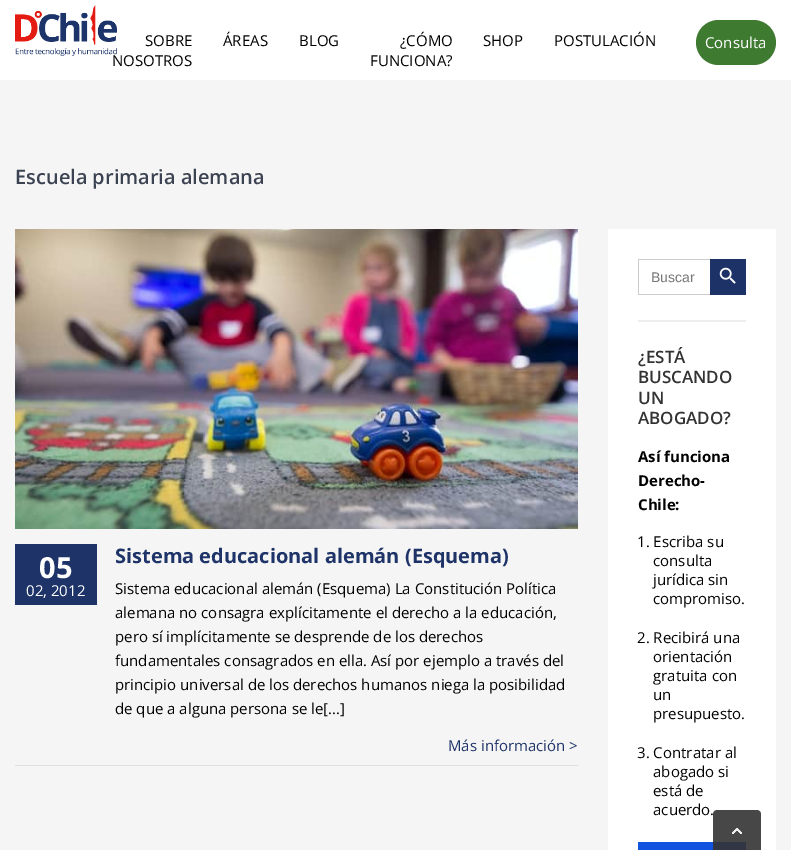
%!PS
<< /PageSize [791 850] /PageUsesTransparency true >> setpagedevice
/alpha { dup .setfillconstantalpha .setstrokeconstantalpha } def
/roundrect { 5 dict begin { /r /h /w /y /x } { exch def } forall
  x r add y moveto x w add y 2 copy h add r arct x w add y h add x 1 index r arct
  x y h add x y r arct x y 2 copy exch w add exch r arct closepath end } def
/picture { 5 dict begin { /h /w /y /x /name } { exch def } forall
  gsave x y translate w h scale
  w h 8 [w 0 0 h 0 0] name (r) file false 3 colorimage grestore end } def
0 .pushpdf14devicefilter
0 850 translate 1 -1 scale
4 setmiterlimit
0.961 setgray
0 0 791 850 rectfill
1 setgray
0 0 791 80 rectfill
(img1.rgb) 15 5 102 51 picture
/OpenSans-Regular [15 0 0 -15 0 0] selectfont
0 setgray
145 46 moveto (SOBRE) show
112 66 moveto (NOSOTROS) show
223 46 moveto (ÁREAS) show
299 46 moveto (BLOG) show
400 46 moveto (¿CÓMO) show
370 66 moveto (FUNCIONA?) show
483 46 moveto (SHOP) show
554 46 moveto (POSTULACIÓN) show
0.247 0.478 0.192 setrgbcolor
696 20 80 45 22.5 roundrect fill
1 setgray
705 48 moveto (Consulta) show
/OpenSans-SemiBold [20 0 0 -20 0 0] selectfont
0.231 0.259 0.318 setrgbcolor
15 184 moveto (Escuela primaria alemana) show
0.878 0.871 0.871 setrgbcolor
15 765 563 1 rectfill
(img2.rgb) 15 229 563 300 picture
0.118 0.2 0.408 setrgbcolor
15 544 82 61 rectfill
/OpenSans-Bold [29 0 0 -29 0 0] selectfont
1 setgray
39 578 moveto (05) show
/OpenSans-Regular [15 0 0 -15 0 0] selectfont
26 596 moveto (02, 2012) show
/OpenSans-Bold [20 0 0 -20 0 0] selectfont
0.118 0.2 0.408 setrgbcolor
115 563 moveto (Sistema educacional alemán \(Esquema\)) show
/OpenSans-Regular [15 0 0 -15 0 0] selectfont
0 setgray
115 594 moveto (Sistema educacional alemán \(Esquema\) La Constitución Política) show
115 618 moveto (alemana no consagra explícitamente el derecho a la educación,) show
115 642 moveto (pero sí implícitamente se desprende de los derechos) show
115 666 moveto (fundamentales consagrados en ella. Así por ejemplo a través del) show
115 690 moveto (principio universal de los derechos humanos niega la posibilidad) show
115 714 moveto (de que a alguna persona se le[...]) show
0.118 0.2 0.408 setrgbcolor
448 751 moveto (Más información >) show
1 setgray
608 229 168 621 rectfill
0.933 setgray
638 320 108 2 rectfill
0.8 setgray
638 259 72 1 rectfill
638 294 72 1 rectfill
638 259 1 36 rectfill
/LiberationSans-Regular [14 0 0 -14 0 0] selectfont
0.459 setgray
651 282 moveto (Buscar) show
0.114 0.2 0.408 setrgbcolor
710 259 36 36 rectfill
(img3.rgb) 719 267 17 17 picture
/OpenSans-SemiBold [17 0 0 -17 0 0] selectfont
0.2 setgray
638 363 moveto (¿ESTÁ) show
638 383 moveto (BUSCANDO) show
638 404 moveto (UN) show
638 424 moveto (ABOGADO?) show
/OpenSans-Bold [15 0 0 -15 0 0] selectfont
0 setgray
638 462 moveto (Así funciona) show
638 486 moveto (Derecho-) show
638 510 moveto (Chile:) show
/OpenSans-Regular [15 0 0 -15 0 0] selectfont
637 547 moveto (1. Escriba su) show
653 566 moveto (consulta) show
653 585 moveto (jurídica sin) show
653 604 moveto (compromiso.) show
637 643 moveto (2. Recibirá una) show
653 662 moveto (orientación) show
653 681 moveto (gratuita con) show
653 700 moveto (un) show
653 719 moveto (presupuesto.) show
637 758 moveto (3. Contratar al) show
653 777 moveto (abogado si) show
653 796 moveto (está de) show
653 815 moveto (acuerdo.) show
0.067 0.329 0.878 setrgbcolor
638 842 108 8 rectfill
0.9 alpha
0.2 setgray
newpath 717 810 moveto 757 810 lineto 759 810 761 812 761 814 curveto 761 850 lineto 713 850 lineto 713 814 lineto 713 812 715 810 717 810 curveto closepath fill
1 alpha
(img4.rgb) 732 828 10 6 picture
.poppdf14devicefilter showpage
